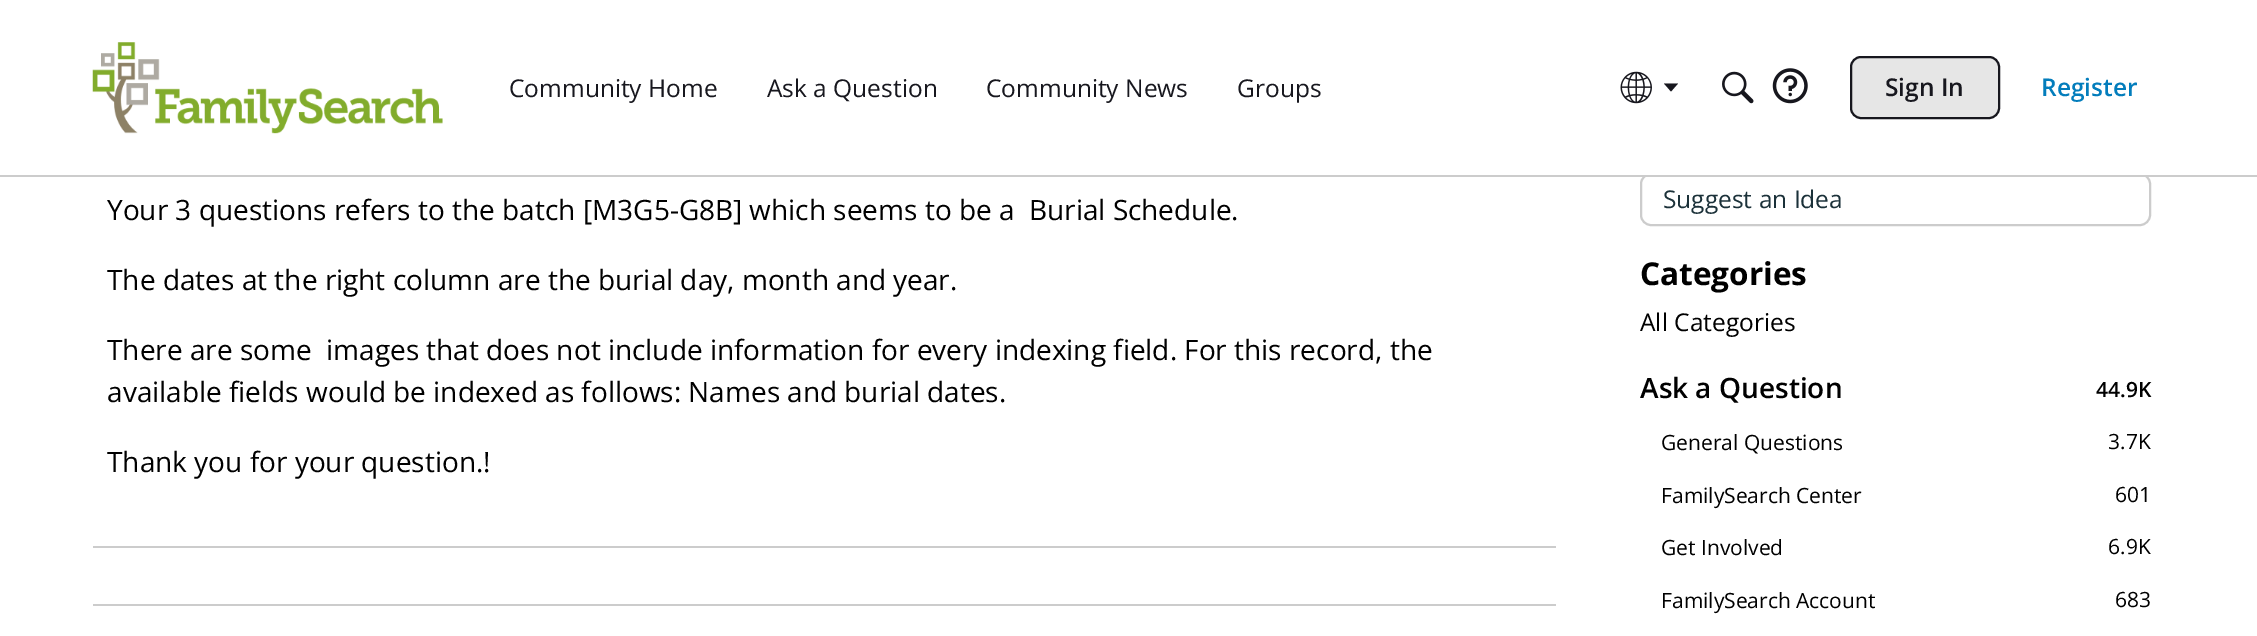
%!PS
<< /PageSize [2257 636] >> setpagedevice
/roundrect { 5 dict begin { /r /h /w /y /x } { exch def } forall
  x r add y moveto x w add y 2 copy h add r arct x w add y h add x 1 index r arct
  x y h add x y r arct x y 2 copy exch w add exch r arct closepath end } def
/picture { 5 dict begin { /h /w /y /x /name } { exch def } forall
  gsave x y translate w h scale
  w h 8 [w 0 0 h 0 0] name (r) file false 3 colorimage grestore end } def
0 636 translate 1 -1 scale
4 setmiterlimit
1 setgray
0 0 2257 636 rectfill
0.8 setgray
2 setlinewidth
1641 174 509 51 10 roundrect stroke
0 175 2257 2 rectfill
(img1.rgb) 92 42 351 92 picture
/OpenSans-Regular [24.5 0 0 -24.5 0 0] selectfont
0.09 0.09 0.118 setrgbcolor
509 97 moveto (Community Home) show
767 97 moveto (Ask a Question) show
986 97 moveto (Community News) show
1237 97 moveto (Groups) show
(img2.rgb) 1620 71 32 33 picture
newpath 1664 83.5 moveto 1678 83.5 lineto 1671 91.5 lineto closepath fill
(img3.rgb) 1722 71 32 33 picture
(img4.rgb) 1772 68 36 36 picture
0.902 setgray
1851 57 148 61 10 roundrect gsave fill grestore
0.09 0.09 0.118 setrgbcolor
stroke
/OpenSans-SemiBold [24.5 0 0 -24.5 0 0] selectfont
1885 96 moveto (Sign In) show
0.012 0.49 0.737 setrgbcolor
2041 96 moveto (Register) show
1 setgray
1645 173 501 2 rectfill
/OpenSans-Regular [28 0 0 -28 0 0] selectfont
0 setgray
107 220 moveto (Your 3 questions refers to the batch [M3G5-G8B] which seems to be a  Burial Schedule.) show
107 290 moveto (The dates at the right column are the burial day, month and year.) show
107 360 moveto (There are some  images that does not include information for every indexing field. For this record, the) show
107 402 moveto (available fields would be indexed as follows: Names and burial dates.) show
107 472 moveto (Thank you for your question.!) show
0.8 setgray
93 546 1463 2 rectfill
93 604 1463 2 rectfill
/OpenSans-Regular [24.5 0 0 -24.5 0 0] selectfont
0.106 0.192 0.224 setrgbcolor
1663 208 moveto (Suggest an Idea) show
/OpenSans-Bold [31.5 0 0 -31.5 0 0] selectfont
0 setgray
1640 285 moveto (Categories) show
/OpenSans-Regular [24.5 0 0 -24.5 0 0] selectfont
1640 331 moveto (All Categories) show
/OpenSans-SemiBold [28 0 0 -28 0 0] selectfont
1640 398 moveto (Ask a Question) show
/OpenSans-SemiBold [21 0 0 -21 0 0] selectfont
2096 397 moveto (44.9K) show
/OpenSans-Regular [21 0 0 -21 0 0] selectfont
1661 450 moveto (General Questions) show
2108 449 moveto (3.7K) show
1661 503 moveto (FamilySearch Center) show
2115 502 moveto (601) show
1661 555 moveto (Get Involved) show
2108 554 moveto (6.9K) show
1661 608 moveto (FamilySearch Account) show
2115 607 moveto (683) show
showpage
